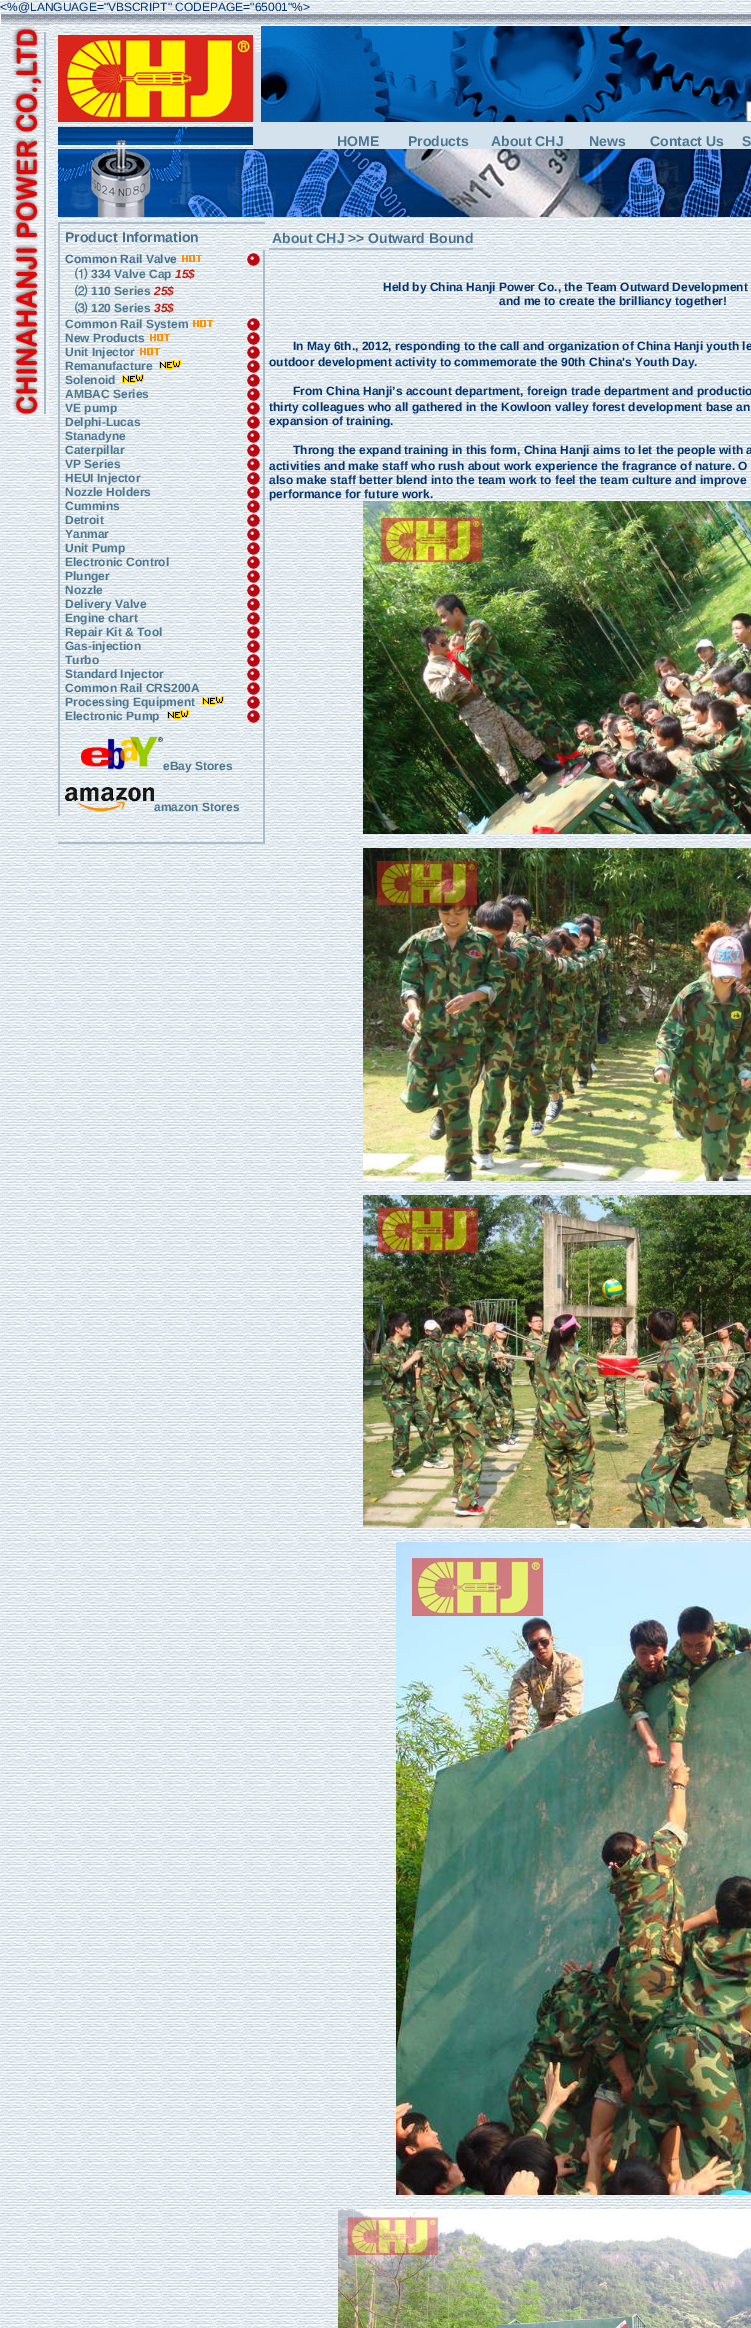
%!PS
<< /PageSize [751 2328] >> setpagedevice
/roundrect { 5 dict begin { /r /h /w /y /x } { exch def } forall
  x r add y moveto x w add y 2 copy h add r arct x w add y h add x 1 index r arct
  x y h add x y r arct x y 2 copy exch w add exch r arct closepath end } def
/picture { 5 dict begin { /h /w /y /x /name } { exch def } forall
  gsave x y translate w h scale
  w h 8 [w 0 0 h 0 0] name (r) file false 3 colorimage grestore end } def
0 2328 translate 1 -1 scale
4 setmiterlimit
1 setgray
0 0 751 2328 rectfill
(img1.rgb) 0 0 751 2328 picture
/LiberationSans-Regular [12 0 0 -12 0 0] selectfont
0.008 0.204 0.435 setrgbcolor
0 11 moveto (<%@LANGUAGE="VBSCRIPT" CODEPAGE="65001"%>) show
(img2.rgb) 1 14 750 10 picture
1 setgray
0 14 1 10 rectfill
(img3.rgb) 10 24 39 395 picture
58 25 1 1 rectfill
(img4.rgb) 58 26 195 96 picture
(img5.rgb) 253 26 150 96 picture
(img6.rgb) 403 26 150 96 picture
(img7.rgb) 553 26 150 96 picture
(img8.rgb) 703 26 48 96 picture
746.5 101.5 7 20 1.5 roundrect gsave fill grestore
0.463 setgray
stroke
(img9.rgb) 58 127 195 18 picture
0.827 0.886 0.925 setrgbcolor
253 122 498 27 rectfill
/LiberationSans-Bold [14 0 0 -14 0 0] selectfont
0.29 0.463 0.561 setrgbcolor
337 146 moveto (HOME) show
408 146 moveto (Products) show
491 146 moveto (About CHJ) show
589 146 moveto (News) show
650 146 moveto (Contact Us) show
742 146 moveto (S) show
(img10.rgb) 58 149 195 68 picture
(img11.rgb) 253 149 498 68 picture
1 setgray
58 217 1 5 rectfill
0.663 0.737 0.796 setrgbcolor
58 222 207 2 rectfill
58 222 2 594 rectfill
1 setgray
62 241 3 1 rectfill
0.282 0.439 0.561 setrgbcolor
65 242 moveto (Product Information) show
0.663 0.737 0.796 setrgbcolor
263 250 2 594 rectfill
/LiberationSans-Bold [12 0 0 -12 0 0] selectfont
0.282 0.439 0.561 setrgbcolor
65 263 moveto (Common Rail Valve) show
(img12.rgb) 182 255 20 7 picture
(img13.rgb) 247 252 13 14 picture
/WenQuanYiZenHei-Bold [12 0 0 -12 0 0] selectfont
0.29 0.463 0.561 setrgbcolor
75 278 moveto (⑴) show
/LiberationSans-Bold [12 0 0 -12 0 0] selectfont
91 278 moveto (334 Valve Cap) show
/LiberationSans-BoldItalic [12 0 0 -12 0 0] selectfont
0.745 0.118 0.071 setrgbcolor
175 278 moveto (15$) show
/WenQuanYiZenHei-Bold [12 0 0 -12 0 0] selectfont
0.29 0.463 0.561 setrgbcolor
75 295 moveto (⑵) show
/LiberationSans-Bold [12 0 0 -12 0 0] selectfont
91 295 moveto (110 Series) show
/LiberationSans-BoldItalic [12 0 0 -12 0 0] selectfont
0.745 0.118 0.071 setrgbcolor
154 295 moveto (25$) show
/WenQuanYiZenHei-Bold [12 0 0 -12 0 0] selectfont
0.29 0.463 0.561 setrgbcolor
75 312 moveto (⑶) show
/LiberationSans-Bold [12 0 0 -12 0 0] selectfont
91 312 moveto (120 Series) show
/LiberationSans-BoldItalic [12 0 0 -12 0 0] selectfont
0.745 0.118 0.071 setrgbcolor
154 312 moveto (35$) show
/LiberationSans-Bold [12 0 0 -12 0 0] selectfont
0.29 0.463 0.561 setrgbcolor
65 328 moveto (Common Rail System) show
(img14.rgb) 193 320 20 7 picture
(img13.rgb) 247 317 13 14 picture
65 342 moveto (New Products) show
(img15.rgb) 150 334 20 7 picture
(img13.rgb) 247 331 13 14 picture
65 356 moveto (Unit Injector) show
(img16.rgb) 140 348 20 7 picture
(img13.rgb) 247 345 13 14 picture
65 370 moveto (Remanufacture) show
(img17.rgb) 159 360 22 9 picture
(img13.rgb) 247 359 13 14 picture
65 384 moveto (Solenoid) show
(img18.rgb) 122 374 22 9 picture
(img13.rgb) 247 373 13 14 picture
65 398 moveto (AMBAC Series) show
(img13.rgb) 247 387 13 14 picture
65 412 moveto (VE pump) show
(img13.rgb) 247 401 13 14 picture
65 426 moveto (Delphi-Lucas) show
(img13.rgb) 247 415 13 14 picture
65 440 moveto (Stanadyne) show
(img13.rgb) 247 429 13 14 picture
65 454 moveto (Caterpillar) show
(img13.rgb) 247 443 13 14 picture
65 468 moveto (VP Series) show
(img13.rgb) 247 457 13 14 picture
65 482 moveto (HEUI Injector) show
(img13.rgb) 247 471 13 14 picture
65 496 moveto (Nozzle Holders) show
(img13.rgb) 247 485 13 14 picture
65 510 moveto (Cummins) show
(img13.rgb) 247 499 13 14 picture
65 524 moveto (Detroit) show
(img13.rgb) 247 513 13 14 picture
65 538 moveto (Yanmar) show
(img13.rgb) 247 527 13 14 picture
65 552 moveto (Unit Pump) show
(img13.rgb) 247 541 13 14 picture
65 566 moveto (Electronic Control) show
(img13.rgb) 247 555 13 14 picture
65 580 moveto (Plunger) show
(img13.rgb) 247 569 13 14 picture
65 594 moveto (Nozzle) show
(img13.rgb) 247 583 13 14 picture
65 608 moveto (Delivery Valve) show
(img13.rgb) 247 597 13 14 picture
65 622 moveto (Engine chart) show
(img13.rgb) 247 611 13 14 picture
65 636 moveto (Repair Kit & Tool) show
(img13.rgb) 247 625 13 14 picture
65 650 moveto (Gas-injection) show
(img13.rgb) 247 639 13 14 picture
65 664 moveto (Turbo) show
(img13.rgb) 247 653 13 14 picture
65 678 moveto (Standard Injector) show
(img13.rgb) 247 667 13 14 picture
65 692 moveto (Common Rail CRS200A) show
(img13.rgb) 247 681 13 14 picture
65 706 moveto (Processing Equipment) show
(img19.rgb) 202 696 22 9 picture
(img13.rgb) 247 695 13 14 picture
65 720 moveto (Electronic Pump) show
(img20.rgb) 167 710 22 9 picture
(img13.rgb) 247 709 13 14 picture
(img21.rgb) 81 737 82 33 picture
163 770 moveto (eBay Stores) show
(img22.rgb) 65 787 89 24 picture
154 811 moveto (amazon Stores) show
0.663 0.737 0.796 setrgbcolor
58 842 207 2 rectfill
269 248 204 2 rectfill
1 setgray
269 242 3 1 rectfill
/LiberationSans-Bold [14 0 0 -14 0 0] selectfont
0.29 0.463 0.561 setrgbcolor
272 243 moveto (About CHJ) show
0.282 0.439 0.561 setrgbcolor
348 243 moveto (>> Outward Bound) show
/LiberationSans-Bold [12 0 0 -12 0 0] selectfont
0.008 0.204 0.435 setrgbcolor
383 291 moveto (Held by China Hanji Power Co., the Team Outward Development) show
499 305 moveto (and me to create the brilliancy together!) show
293 350 moveto (In May 6th., 2012, responding to the call and organization of China Hanji youth le) show
269 366 moveto (outdoor development activity to commemorate the 90th China's Youth Day.) show
293 395 moveto (From China Hanji’s account department, foreign trade department and productio) show
269 411 moveto (thirty colleagues who all gathered in the Kowloon valley forest development base an) show
269 425 moveto (expansion of training.) show
293 454 moveto (Throng the expand training in this form, China Hanji aims to let the people with a) show
269 470 moveto (activities and make staff who rush about work experience the fragrance of nature. O) show
269 484 moveto (also make staff better blend into the team work to feel the team culture and improve) show
269 498 moveto (performance for future work.) show
(img23.rgb) 363 501 388 333 picture
(img24.rgb) 363 848 388 333 picture
(img25.rgb) 363 1195 388 333 picture
(img26.rgb) 396 1542 355 653 picture
(img27.rgb) 338 2209 413 119 picture
showpage
